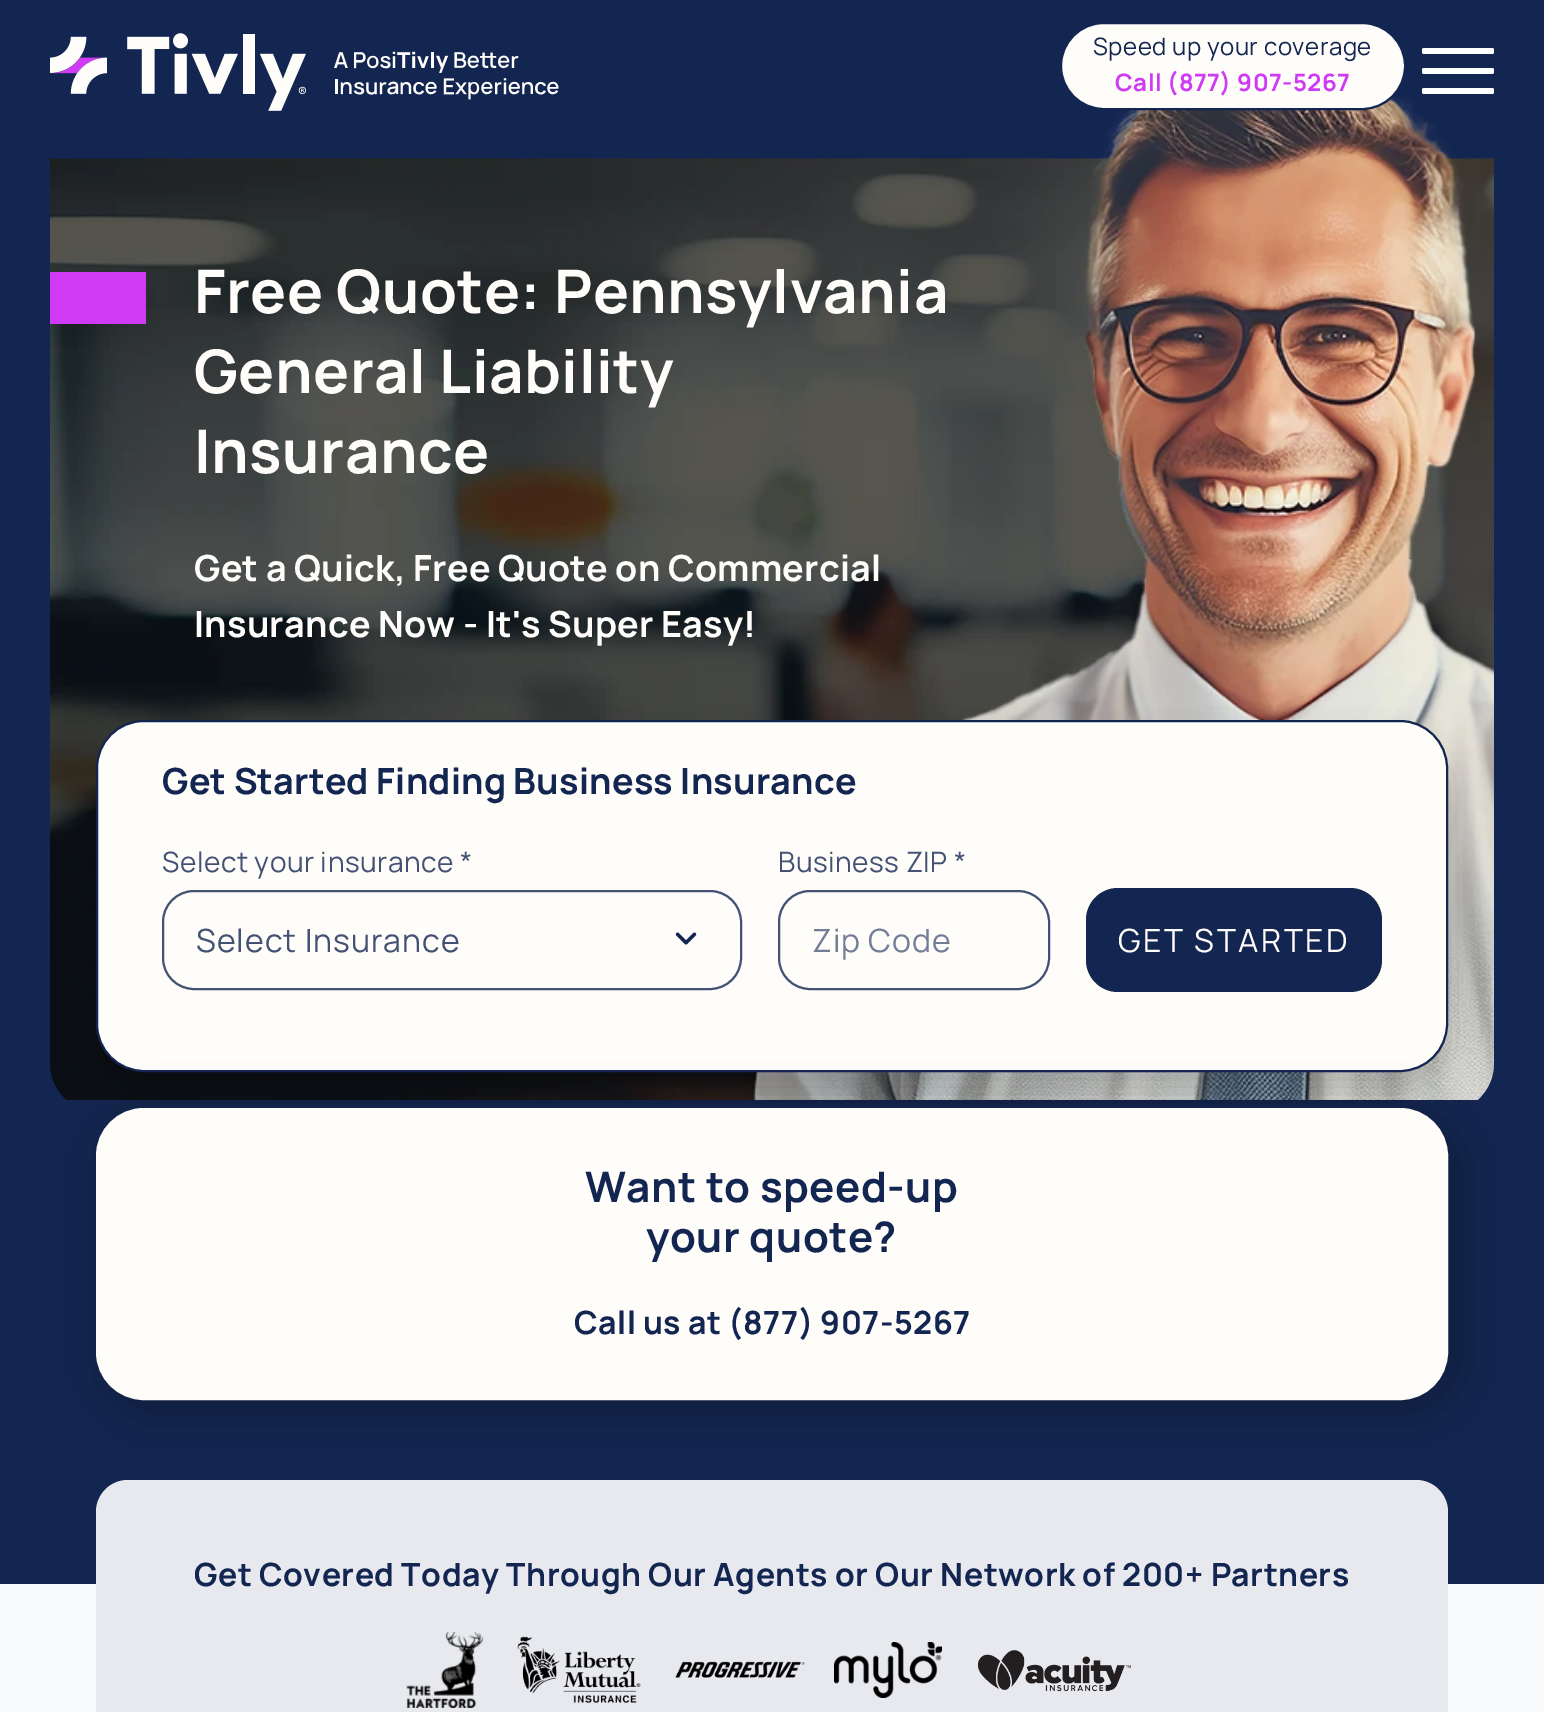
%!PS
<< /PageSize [1544 1712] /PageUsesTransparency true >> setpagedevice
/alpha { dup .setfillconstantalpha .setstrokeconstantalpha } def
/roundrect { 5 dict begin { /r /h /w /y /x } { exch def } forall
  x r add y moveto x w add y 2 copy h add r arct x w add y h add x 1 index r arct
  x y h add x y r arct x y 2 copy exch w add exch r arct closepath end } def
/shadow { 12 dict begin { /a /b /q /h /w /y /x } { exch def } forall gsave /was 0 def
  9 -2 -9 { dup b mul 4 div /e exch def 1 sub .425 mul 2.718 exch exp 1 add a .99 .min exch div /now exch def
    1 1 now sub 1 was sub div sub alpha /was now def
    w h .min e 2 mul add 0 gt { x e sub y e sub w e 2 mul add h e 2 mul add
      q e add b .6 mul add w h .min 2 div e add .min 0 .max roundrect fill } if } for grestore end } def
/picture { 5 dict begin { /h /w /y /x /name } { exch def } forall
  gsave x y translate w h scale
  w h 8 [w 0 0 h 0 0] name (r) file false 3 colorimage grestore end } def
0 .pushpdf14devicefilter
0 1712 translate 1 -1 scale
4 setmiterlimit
0.075 0.145 0.318 setrgbcolor
0 0 1544 1712 rectfill
(img2.rgb) 50 96 1444 1004 picture
(img1.rgb) 50 33 509 78 picture
1 0.992 0.98 setrgbcolor
1061 23 344 86 43 roundrect gsave fill grestore
0.075 0.145 0.318 setrgbcolor
2 setlinewidth
stroke
/Manrope-Regular [24 0 0 -24 0 0] selectfont
1093 55 moveto 0.5 0 (Speed up your coverage) ashow
/Manrope-Bold [24 0 0 -24 0 0] selectfont
0.812 0.231 0.961 setrgbcolor
1115 91 moveto 0.5 0 (Call \(877\) 907-5267) ashow
1 setgray
1422 48 72 6 2 roundrect fill
1422 68 72 6 2 roundrect fill
1422 88 72 6 2 roundrect fill
0.812 0.231 0.961 setrgbcolor
50 272 96 52 rectfill
/Manrope-Bold [60 0 0 -60 0 0] selectfont
1 0.992 0.98 setrgbcolor
194 313 moveto 0.5 0 (Free Quote: Pennsylvania) ashow
194 393 moveto 0.5 0 (General Liability) ashow
194 473 moveto 0.5 0 (Insurance) ashow
/Manrope-Bold [36 0 0 -36 0 0] selectfont
194 581 moveto 0.2 0 (Get a Quick, Free Quote on Commercial) ashow
194 637 moveto 0.2 0 (Insurance Now - It's Super Easy!) ashow
0 setgray
96 740 1352 352 48 15 0.2 shadow
1 0.992 0.98 setrgbcolor
97 721 1350 350 47 roundrect gsave fill grestore
0.075 0.145 0.318 setrgbcolor
stroke
162 794 moveto 0.2 0 (Get Started Finding Business Insurance) ashow
/Manrope-Regular [28 0 0 -28 0 0] selectfont
0.263 0.318 0.455 setrgbcolor
162 872 moveto 0.5 0 (Select your insurance *) ashow
163 891 578 98 31 roundrect stroke
/Manrope-Regular [32 0 0 -32 0 0] selectfont
196 952 moveto 1 0 (Select Insurance) ashow
(img3.rgb) 675 932 22 13 picture
/Manrope-Regular [28 0 0 -28 0 0] selectfont
778 872 moveto 0.5 0 (Business ZIP *) ashow
779 891 270 98 31 roundrect stroke
/Manrope-Regular [32 0 0 -32 0 0] selectfont
0.447 0.49 0.592 setrgbcolor
812 952 moveto 1 0 (Zip Code) ashow
0.075 0.145 0.318 setrgbcolor
1086 888 296 104 32 roundrect fill
1 0.992 0.98 setrgbcolor
1118 952 moveto 2.5 0 (GET STARTED) ashow
0 setgray
106 1118 1352 292 48 25 0.25 shadow
1 0.992 0.98 setrgbcolor
99 1111 1346 286 45 roundrect gsave fill grestore
6 setlinewidth
stroke
/Manrope-Bold [42 0 0 -42 0 0] selectfont
0.075 0.145 0.318 setrgbcolor
585 1202 moveto 0.5 0 (Want to speed-up) ashow
646 1252 moveto 0.5 0 (your quote?) ashow
/Manrope-Bold [32 0 0 -32 0 0] selectfont
574 1334 moveto 0.5 0 (Call us at \(877\) 907-5267) ashow
0.973 0.98 0.988 setrgbcolor
0 1584 1544 128 rectfill
0.906 0.914 0.933 setrgbcolor
96 1480 1352 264 32 roundrect fill
0.075 0.145 0.318 setrgbcolor
194 1586 moveto 0.5 0 (Get Covered Today Through Our Agents or Our Network of 200+ Partners) ashow
(img4.rgb) 406 1632 78 76 picture
(img5.rgb) 517 1636 124 68 picture
(img6.rgb) 675 1661 130 17 picture
(img7.rgb) 834 1642 108 56 picture
(img8.rgb) 978 1650 153 42 picture
.poppdf14devicefilter showpage
